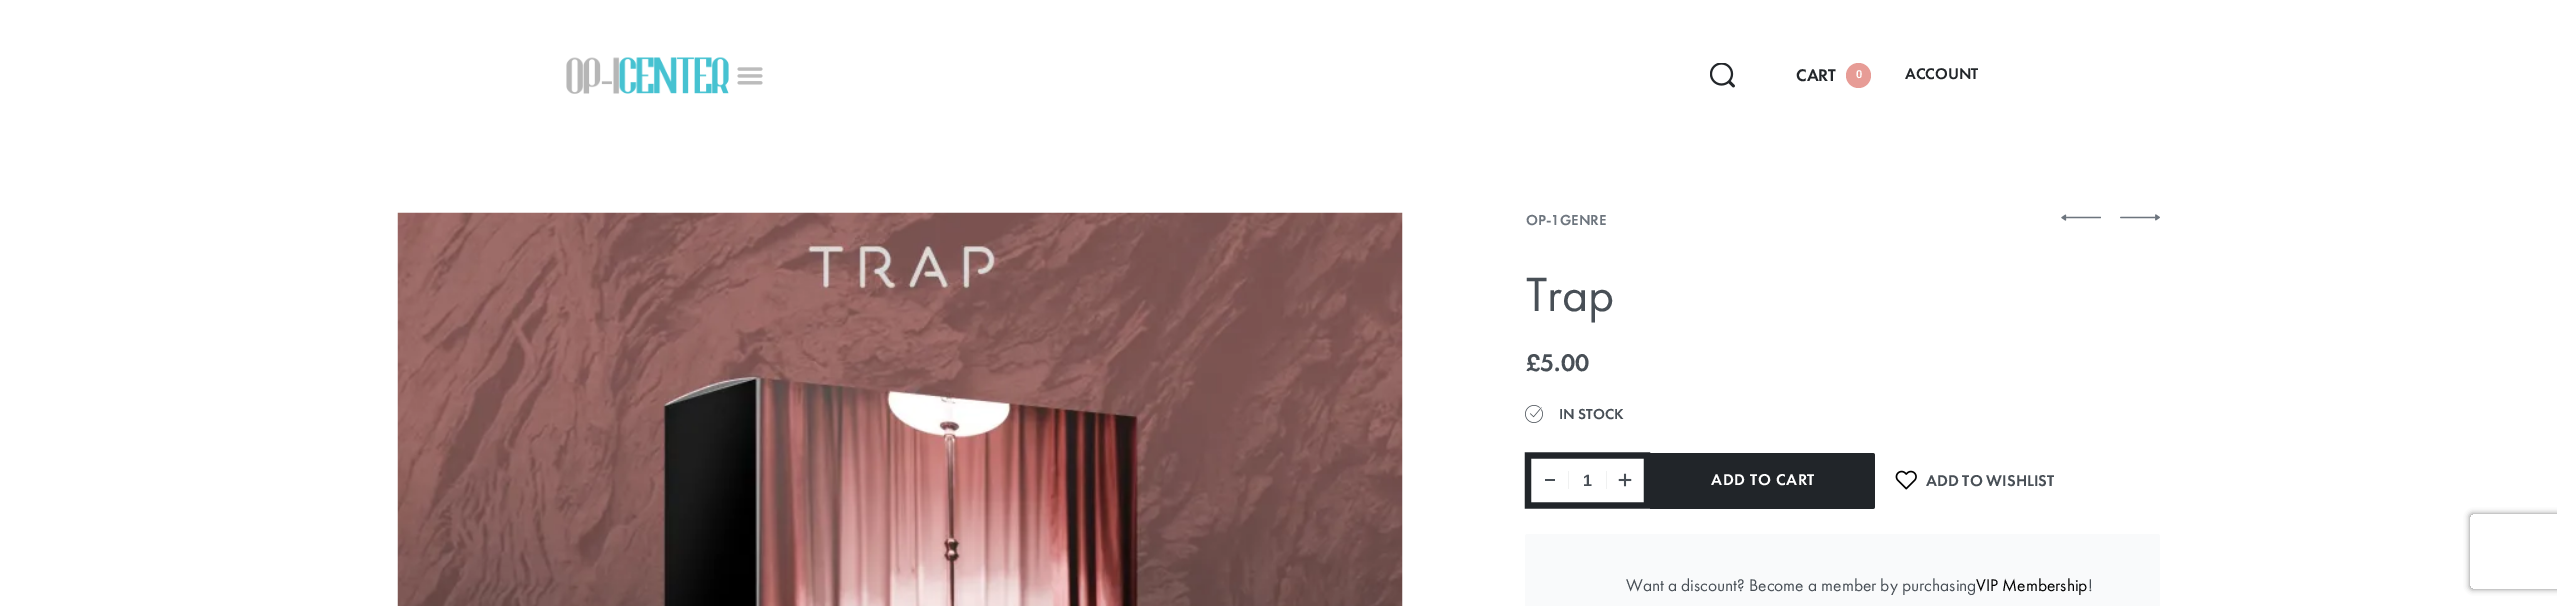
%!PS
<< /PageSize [2557 606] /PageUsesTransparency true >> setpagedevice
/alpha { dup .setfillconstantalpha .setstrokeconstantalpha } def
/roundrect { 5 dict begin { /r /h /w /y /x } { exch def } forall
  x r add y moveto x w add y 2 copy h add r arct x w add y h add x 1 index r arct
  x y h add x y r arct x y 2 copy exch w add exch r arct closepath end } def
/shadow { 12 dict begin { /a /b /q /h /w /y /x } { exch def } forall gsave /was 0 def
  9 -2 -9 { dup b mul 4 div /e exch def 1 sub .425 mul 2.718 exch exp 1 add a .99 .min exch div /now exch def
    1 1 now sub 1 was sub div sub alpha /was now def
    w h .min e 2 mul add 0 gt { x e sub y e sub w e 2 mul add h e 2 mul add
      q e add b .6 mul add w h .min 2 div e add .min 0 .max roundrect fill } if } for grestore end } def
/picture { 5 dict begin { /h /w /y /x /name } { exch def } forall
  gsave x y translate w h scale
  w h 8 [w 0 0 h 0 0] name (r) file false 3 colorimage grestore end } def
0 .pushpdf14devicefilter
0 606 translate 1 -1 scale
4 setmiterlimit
1 setgray
0 0 2557 606 rectfill
(img1.rgb) 566 57 163 37 picture
(img2.rgb) 737 67 26 18 picture
(img3.rgb) 1710 63 25 25 picture
/FuturaPT-Medium [17.5 0 0 -17.5 0 0] selectfont
0.133 0.149 0.165 setrgbcolor
1796 81 moveto (CART) show
0.906 0.612 0.588 setrgbcolor
newpath 1858.5 75.5 12.5 0 360 arc closepath fill
/Roboto-SemiBold [11 0 0 -11 0 0] selectfont
1 setgray
1856 78 moveto (0) show
/FuturaPT-Medium [16 0 0 -16 0 0] selectfont
0.133 0.149 0.165 setrgbcolor
1905 79 moveto (ACCOUNT) show
(img4.rgb) 397 212 1006 394 picture
/FuturaPT-Medium [15 0 0 -15 0 0] selectfont
0.427 0.459 0.494 setrgbcolor
1526 225 moveto (OP-1GENRE) show
(img5.rgb) 2061 214 40 7 picture
(img6.rgb) 2120 214 40 7 picture
/FuturaPT-Regular [50 0 0 -50 0 0] selectfont
0.282 0.31 0.337 setrgbcolor
1526 311 moveto (Trap) show
/FuturaPT-Medium [25 0 0 -25 0 0] selectfont
1526 371 moveto (£5.00) show
(img7.rgb) 1525 405 18 18 picture
/FuturaPT-Medium [15 0 0 -15 0 0] selectfont
1559 419 moveto (IN STOCK) show
0.129 0.145 0.161 setrgbcolor
6.2 setlinewidth
newpath 1528 455.5 moveto 1647 455.5 lineto 1647 505.5 lineto 1528 505.5 lineto closepath stroke
0.282 0.31 0.337 setrgbcolor
1545 479 10 2 rectfill
0.941 0.945 0.945 setrgbcolor
1568 471 1 18 rectfill
/LiberationSans-Bold [16.25 0 0 -16.25 0 0] selectfont
0.282 0.31 0.337 setrgbcolor
1583 486 moveto (1) show
0.941 0.945 0.945 setrgbcolor
1606 471 1 18 rectfill
(img8.rgb) 1618 473 14 14 picture
0.129 0.145 0.161 setrgbcolor
newpath 1650 453 moveto 1872.5 453 lineto 1874 453 1875 454 1875 455.5 curveto 1875 506.5 lineto 1875 508 1874 509 1872.5 509 curveto 1650 509 lineto closepath fill
/FuturaPT-Medium [16.25 0 0 -16.25 0 0] selectfont
1 setgray
1711 485 moveto 0.6 0 (ADD TO CART) ashow
(img9.rgb) 1895 470 22 20 picture
0.282 0.31 0.337 setrgbcolor
1926 486 moveto (ADD TO WISHLIST) show
0.976 0.98 0.984 setrgbcolor
1525 534 635 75 2.5 roundrect fill
/FuturaPT-Regular [17.5 0 0 -17.5 0 0] selectfont
0.282 0.31 0.337 setrgbcolor
1626 591 moveto (Want a discount? Become a member by purchasing) show
0 setgray
1976 591 moveto (VIP Membership) show
0.282 0.31 0.337 setrgbcolor
2088 591 moveto (!) show
gsave
newpath 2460 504 moveto 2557 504 lineto 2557 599 lineto 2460 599 lineto closepath 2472.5 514 moveto 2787.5 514 lineto 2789 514 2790 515 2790 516.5 curveto 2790 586.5 lineto 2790 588 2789 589 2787.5 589 curveto 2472.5 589 lineto 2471 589 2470 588 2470 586.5 curveto 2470 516.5 lineto 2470 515 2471 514 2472.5 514 curveto closepath eoclip newpath
0.502 setgray
2470 514 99 75 2.5 3 1 shadow
grestore
.poppdf14devicefilter showpage
